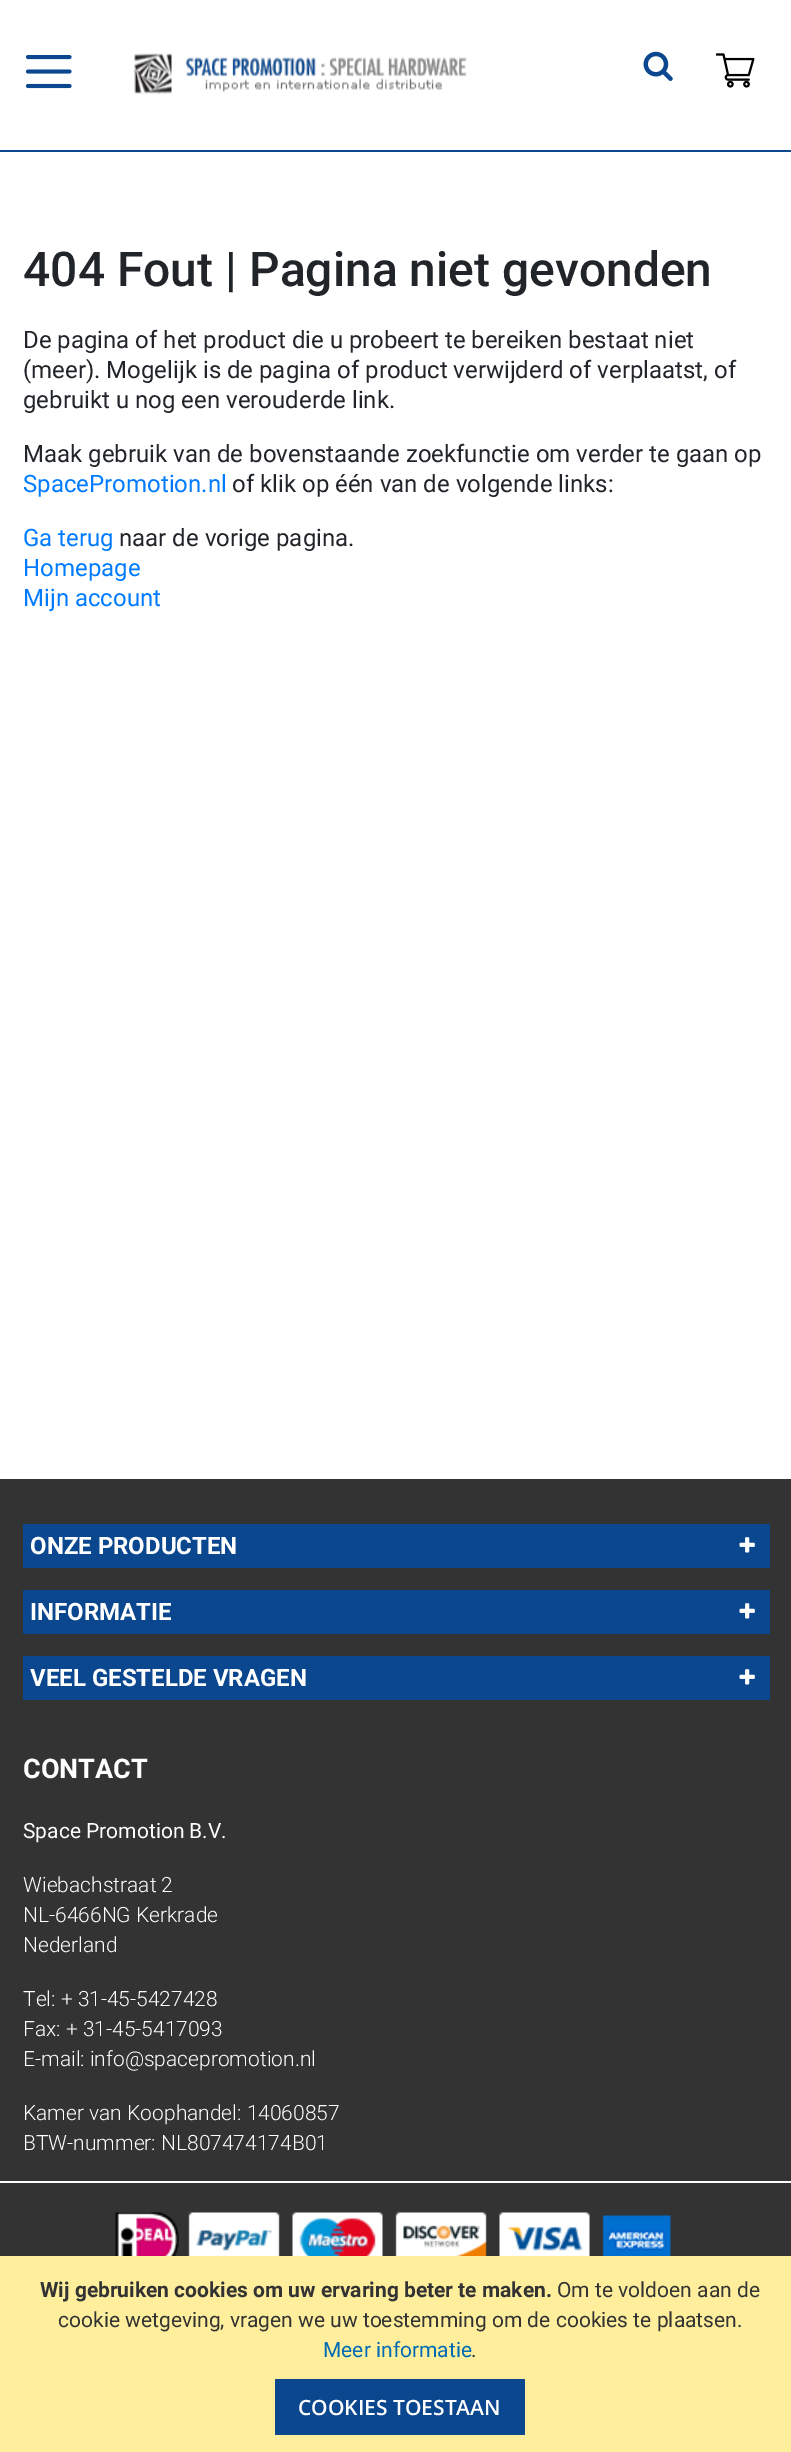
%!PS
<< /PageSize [791 2452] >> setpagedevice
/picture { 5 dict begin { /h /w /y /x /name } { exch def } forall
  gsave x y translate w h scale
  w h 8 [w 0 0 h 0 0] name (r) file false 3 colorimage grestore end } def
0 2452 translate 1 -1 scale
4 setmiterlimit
1 setgray
0 0 791 2452 rectfill
0.039 0.278 0.561 setrgbcolor
0 150 791 2 rectfill
(img1.rgb) 25 55 47 34 picture
(img2.rgb) 133 53 334 42 picture
(img3.rgb) 643 51 30 30 picture
(img4.rgb) 716 53 39 35 picture
/Roboto-Medium [48 0 0 -48 0 0] selectfont
0.129 0.145 0.161 setrgbcolor
23 286 moveto (404 Fout | Pagina niet gevonden) show
/Roboto-Regular [24 0 0 -24 0 0] selectfont
23 348 moveto (De pagina of het product die u probeert te bereiken bestaat niet) show
23 378 moveto (\(meer\). Mogelijk is de pagina of product verwijderd of verplaatst, of) show
23 408 moveto (gebruikt u nog een verouderde link.) show
23 462 moveto (Maak gebruik van de bovenstaande zoekfunctie om verder te gaan op) show
0 0.482 1 setrgbcolor
23 492 moveto (SpacePromotion.nl) show
0.129 0.145 0.161 setrgbcolor
232 492 moveto (of klik op één van de volgende links:) show
0 0.482 1 setrgbcolor
23 546 moveto (Ga terug) show
0.129 0.145 0.161 setrgbcolor
119 546 moveto (naar de vorige pagina.) show
0 0.482 1 setrgbcolor
23 576 moveto (Homepage) show
23 606 moveto (Mijn account) show
0.2 setgray
0 1479 791 777 rectfill
1 setgray
0 2181 791 2 rectfill
0.039 0.278 0.561 setrgbcolor
23 1524 747 44 rectfill
/Roboto-Bold [24 0 0 -24 0 0] selectfont
1 setgray
30 1554 moveto (ONZE PRODUCTEN) show
(img5.rgb) 739 1537 16 16 picture
0.039 0.278 0.561 setrgbcolor
23 1590 747 44 rectfill
1 setgray
30 1620 moveto (INFORMATIE) show
(img5.rgb) 739 1603 16 16 picture
0.039 0.278 0.561 setrgbcolor
23 1656 747 44 rectfill
1 setgray
30 1686 moveto (VEEL GESTELDE VRAGEN) show
(img5.rgb) 739 1669 16 16 picture
/Roboto-Bold [27 0 0 -27 0 0] selectfont
23 1778 moveto (CONTACT) show
/Roboto-Regular [21 0 0 -21 0 0] selectfont
23 1838 moveto (Space Promotion B.V.) show
/Roboto-Light [21 0 0 -21 0 0] selectfont
23 1892 moveto (Wiebachstraat 2) show
23 1922 moveto (NL-6466NG Kerkrade) show
23 1952 moveto (Nederland) show
23 2006 moveto (Tel: + 31-45-5427428) show
23 2036 moveto (Fax: + 31-45-5417093) show
23 2066 moveto (E-mail: info@spacepromotion.nl) show
23 2120 moveto (Kamer van Koophandel: 14060857) show
23 2150 moveto (BTW-nummer: NL807474174B01) show
(img6.rgb) 115 2212 556 44 picture
1 0.933 0.612 setrgbcolor
0 2256 791 196 rectfill
/Roboto-Bold [21 0 0 -21 0 0] selectfont
0.2 setgray
40 2297 moveto (Wij gebruiken cookies om uw ervaring beter te maken.) show
/Roboto-Regular [21 0 0 -21 0 0] selectfont
557 2297 moveto (Om te voldoen aan de) show
58 2327 moveto (cookie wetgeving, vragen we uw toestemming om de cookies te plaatsen.) show
0 0.42 0.706 setrgbcolor
323 2357 moveto (Meer informatie) show
0.2 setgray
471 2357 moveto (.) show
0.039 0.278 0.561 setrgbcolor
275 2379 250 56 rectfill
/OpenSans-SemiBold [21 0 0 -21 0 0] selectfont
1 setgray
298 2415 moveto (COOKIES TOESTAAN) show
showpage
